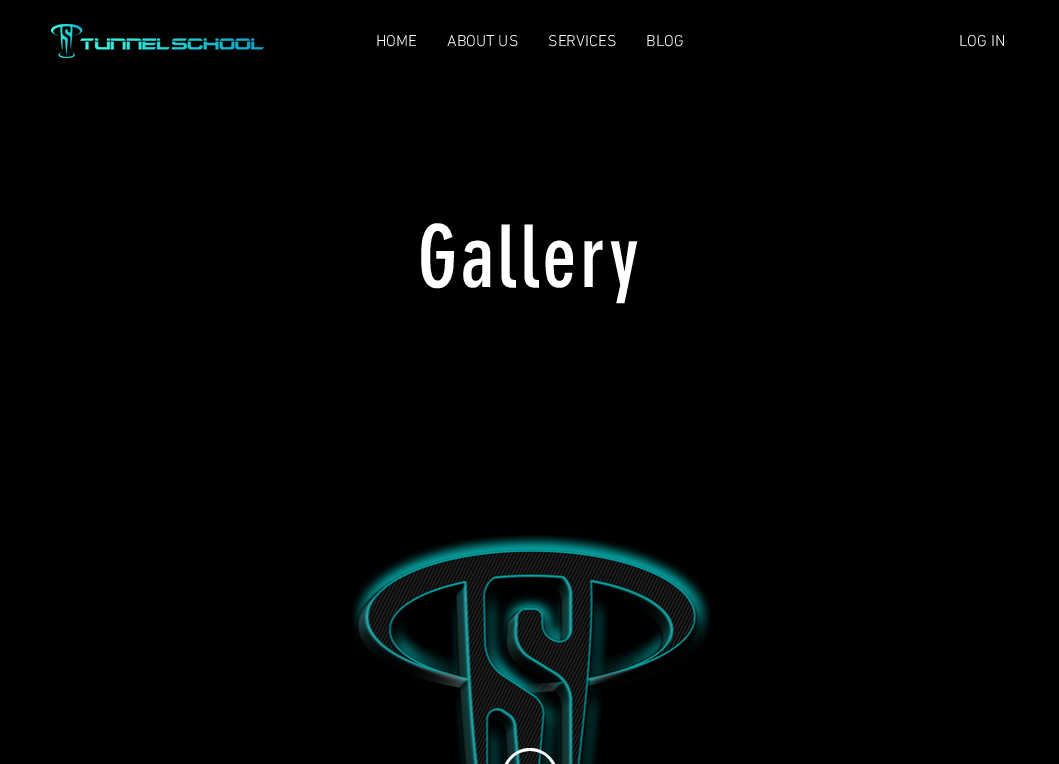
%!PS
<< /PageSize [1059 764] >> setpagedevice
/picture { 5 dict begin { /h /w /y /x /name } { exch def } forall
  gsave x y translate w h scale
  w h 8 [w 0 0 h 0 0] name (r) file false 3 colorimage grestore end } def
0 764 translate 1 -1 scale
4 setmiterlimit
0 setgray
0 0 1059 764 rectfill
(img1.rgb) 51 24 213 34 picture
/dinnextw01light-Light [16 0 0 -16 0 0] selectfont
1 setgray
376 46 moveto (HOME) show
447 46 moveto (ABOUT US) show
548 46 moveto (SERVICES) show
646 46 moveto (BLOG) show
959 46 moveto (LOG IN) show
/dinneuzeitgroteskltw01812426-Regular [85 0 0 -85 0 0] selectfont
418 287 moveto 3.5 0 (Gallery) ashow
(img2.rgb) 352 535 359 229 picture
(img3.rgb) 352 535 359 229 picture
newpath 530 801 moveto 563 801 563 751 530 751 curveto 497 751 497 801 530 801 curveto closepath 530 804 moveto 515 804 502 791 502 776 curveto 502 761 515 748 530 748 curveto 545 748 558 761 558 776 curveto 558 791 545 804 530 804 curveto closepath eofill
showpage
